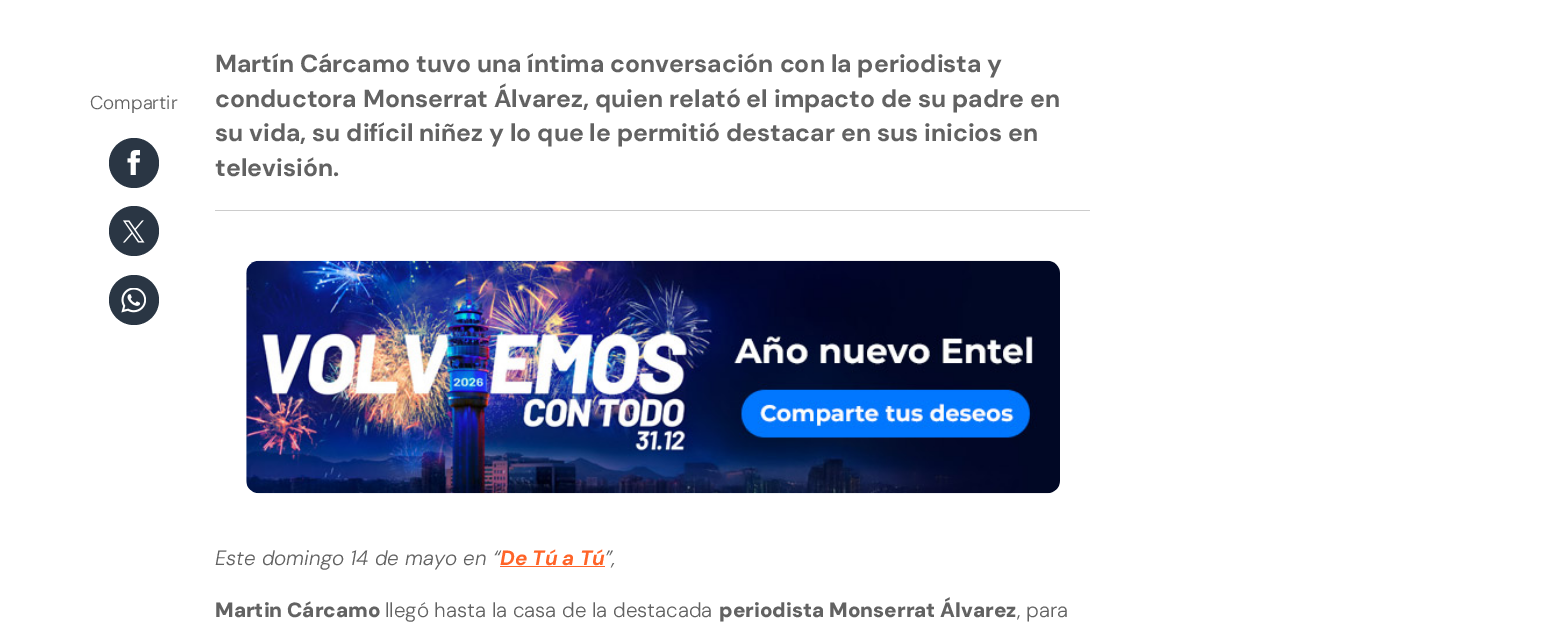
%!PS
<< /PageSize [1554 644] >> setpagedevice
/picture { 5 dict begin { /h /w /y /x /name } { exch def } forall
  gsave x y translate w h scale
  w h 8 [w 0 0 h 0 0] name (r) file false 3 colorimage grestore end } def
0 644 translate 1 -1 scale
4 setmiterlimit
1 setgray
0 0 1554 644 rectfill
/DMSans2-Light [18.75 0 0 -18.75 0 0] selectfont
0.384 setgray
90 109 moveto (Compartir) show
0.165 0.212 0.267 setrgbcolor
newpath 134 163 25 0 360 arc closepath fill
(img1.rgb) 127 150 13 25 picture
newpath 134 231 25 0 360 arc closepath fill
(img2.rgb) 123 220 22 23 picture
newpath 134 300 25 0 360 arc closepath fill
(img3.rgb) 121 288 25 25 picture
0.8 setgray
215 210 875 1 rectfill
/DMSans-Bold [24.75 0 0 -24.75 0 0] selectfont
0.384 setgray
215 72 moveto (Martín Cárcamo tuvo una íntima conversación con la periodista y) show
215 107 moveto (conductora Monserrat Álvarez, quien relató el impacto de su padre en) show
215 141 moveto (su vida, su difícil niñez y lo que le permitió destacar en sus inicios en) show
215 176 moveto (televisión.) show
(img4.rgb) 246 260 814 234 picture
/DMSans-LightItalic [20.6 0 0 -20.6 0 0] selectfont
215 565 moveto (Este domingo 14 de mayo en “) show
/DMSans-BoldItalic [20.6 0 0 -20.6 0 0] selectfont
1 0.392 0.157 setrgbcolor
500 565 moveto (De Tú a Tú) show
500 566 105 1 rectfill
/DMSans-LightItalic [20.6 0 0 -20.6 0 0] selectfont
0.384 setgray
605 565 moveto (”,) show
/DMSans-Black [20.6 0 0 -20.6 0 0] selectfont
215 617 moveto (Martin Cárcamo) show
/DMSans-Light [20.6 0 0 -20.6 0 0] selectfont
385 617 moveto (llegó hasta la casa de la destacada) show
/DMSans-Black [20.6 0 0 -20.6 0 0] selectfont
719 617 moveto (periodista Monserrat Álvarez) show
/DMSans-Light [20.6 0 0 -20.6 0 0] selectfont
1017 617 moveto (, para) show
showpage
